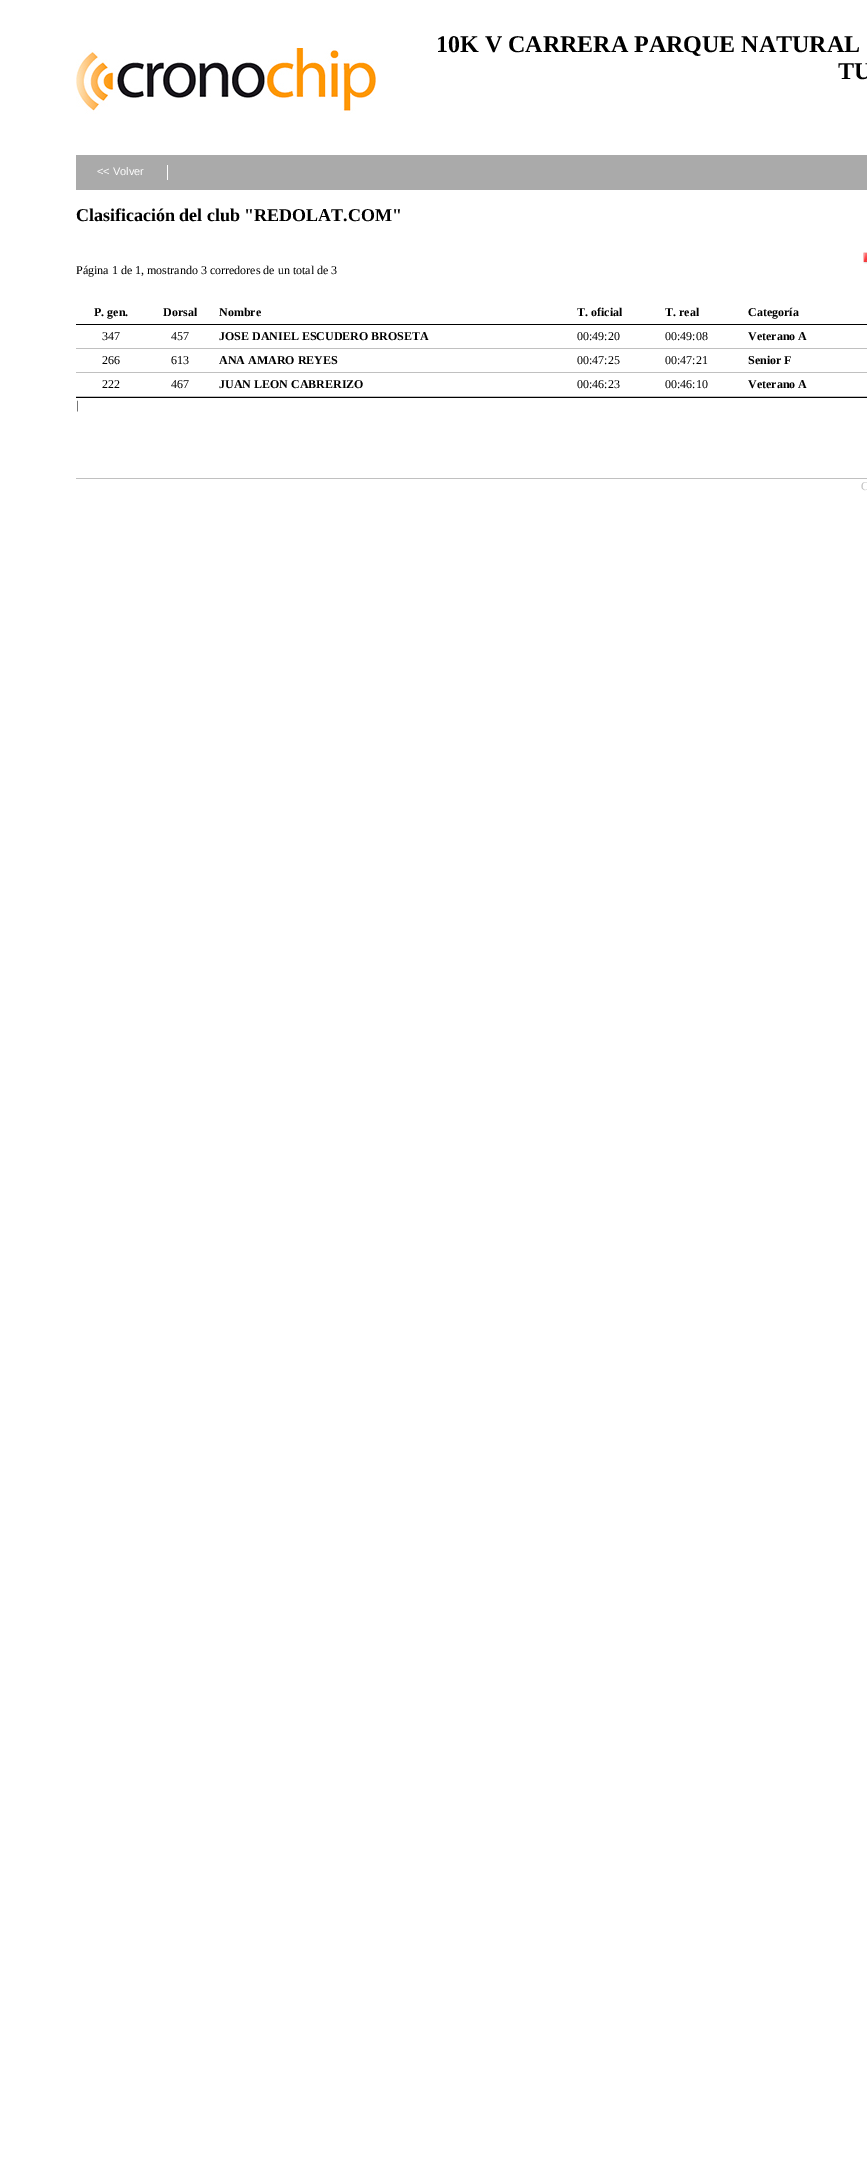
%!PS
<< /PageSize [867 2174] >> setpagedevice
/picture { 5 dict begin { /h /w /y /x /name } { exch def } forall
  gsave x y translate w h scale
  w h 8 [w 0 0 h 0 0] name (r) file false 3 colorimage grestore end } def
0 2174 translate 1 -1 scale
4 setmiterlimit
1 setgray
0 0 867 2174 rectfill
(img1.rgb) 76 48 300 66 picture
/LiberationSerif-Bold [24 0 0 -24 0 0] selectfont
0 setgray
436 52 moveto (10K V CARRERA PARQUE NATURAL) show
838 79 moveto (TU) show
0.667 setgray
76 155 791 35 rectfill
/LiberationSans-Regular [11 0 0 -11 0 0] selectfont
1 setgray
97 175 moveto (<< Volver) show
167 165 1 15 rectfill
/LiberationSerif-Bold [18 0 0 -18 0 0] selectfont
0 setgray
76 221 moveto (Clasificación del club "REDOLAT.COM") show
(img2.rgb) 863 252 4 12 picture
/LiberationSerif-Regular [12 0 0 -12 0 0] selectfont
76 274 moveto (Página 1 de 1, mostrando 3 corredores de un total de 3) show
76 324 791 1 rectfill
/LiberationSerif-Bold [12 0 0 -12 0 0] selectfont
94 316 moveto (P. gen.) show
163 316 moveto (Dorsal) show
219 316 moveto (Nombre) show
577 316 moveto (T. oficial) show
665 316 moveto (T. real) show
748 316 moveto (Categoría) show
0.753 setgray
76 348 791 1 rectfill
/LiberationSerif-Regular [12 0 0 -12 0 0] selectfont
0 setgray
102 340 moveto (347) show
171 340 moveto (457) show
/LiberationSerif-Bold [12 0 0 -12 0 0] selectfont
219 340 moveto (JOSE DANIEL ESCUDERO BROSETA) show
/LiberationSerif-Regular [12 0 0 -12 0 0] selectfont
577 340 moveto (00:49:20) show
665 340 moveto (00:49:08) show
/LiberationSerif-Bold [12 0 0 -12 0 0] selectfont
748 340 moveto (Veterano A) show
0.753 setgray
76 372 791 1 rectfill
/LiberationSerif-Regular [12 0 0 -12 0 0] selectfont
0 setgray
102 364 moveto (266) show
171 364 moveto (613) show
/LiberationSerif-Bold [12 0 0 -12 0 0] selectfont
219 364 moveto (ANA AMARO REYES) show
/LiberationSerif-Regular [12 0 0 -12 0 0] selectfont
577 364 moveto (00:47:25) show
665 364 moveto (00:47:21) show
/LiberationSerif-Bold [12 0 0 -12 0 0] selectfont
748 364 moveto (Senior F) show
0.753 setgray
76 396 791 1 rectfill
/LiberationSerif-Regular [12 0 0 -12 0 0] selectfont
0 setgray
102 388 moveto (222) show
171 388 moveto (467) show
/LiberationSerif-Bold [12 0 0 -12 0 0] selectfont
219 388 moveto (JUAN LEON CABRERIZO) show
/LiberationSerif-Regular [12 0 0 -12 0 0] selectfont
577 388 moveto (00:46:23) show
665 388 moveto (00:46:10) show
/LiberationSerif-Bold [12 0 0 -12 0 0] selectfont
748 388 moveto (Veterano A) show
76 397 791 1 rectfill
/LiberationSerif-Regular [12 0 0 -12 0 0] selectfont
76 409 moveto (|) show
0.753 setgray
76 478 791 1 rectfill
861 490 moveto (C) show
showpage
